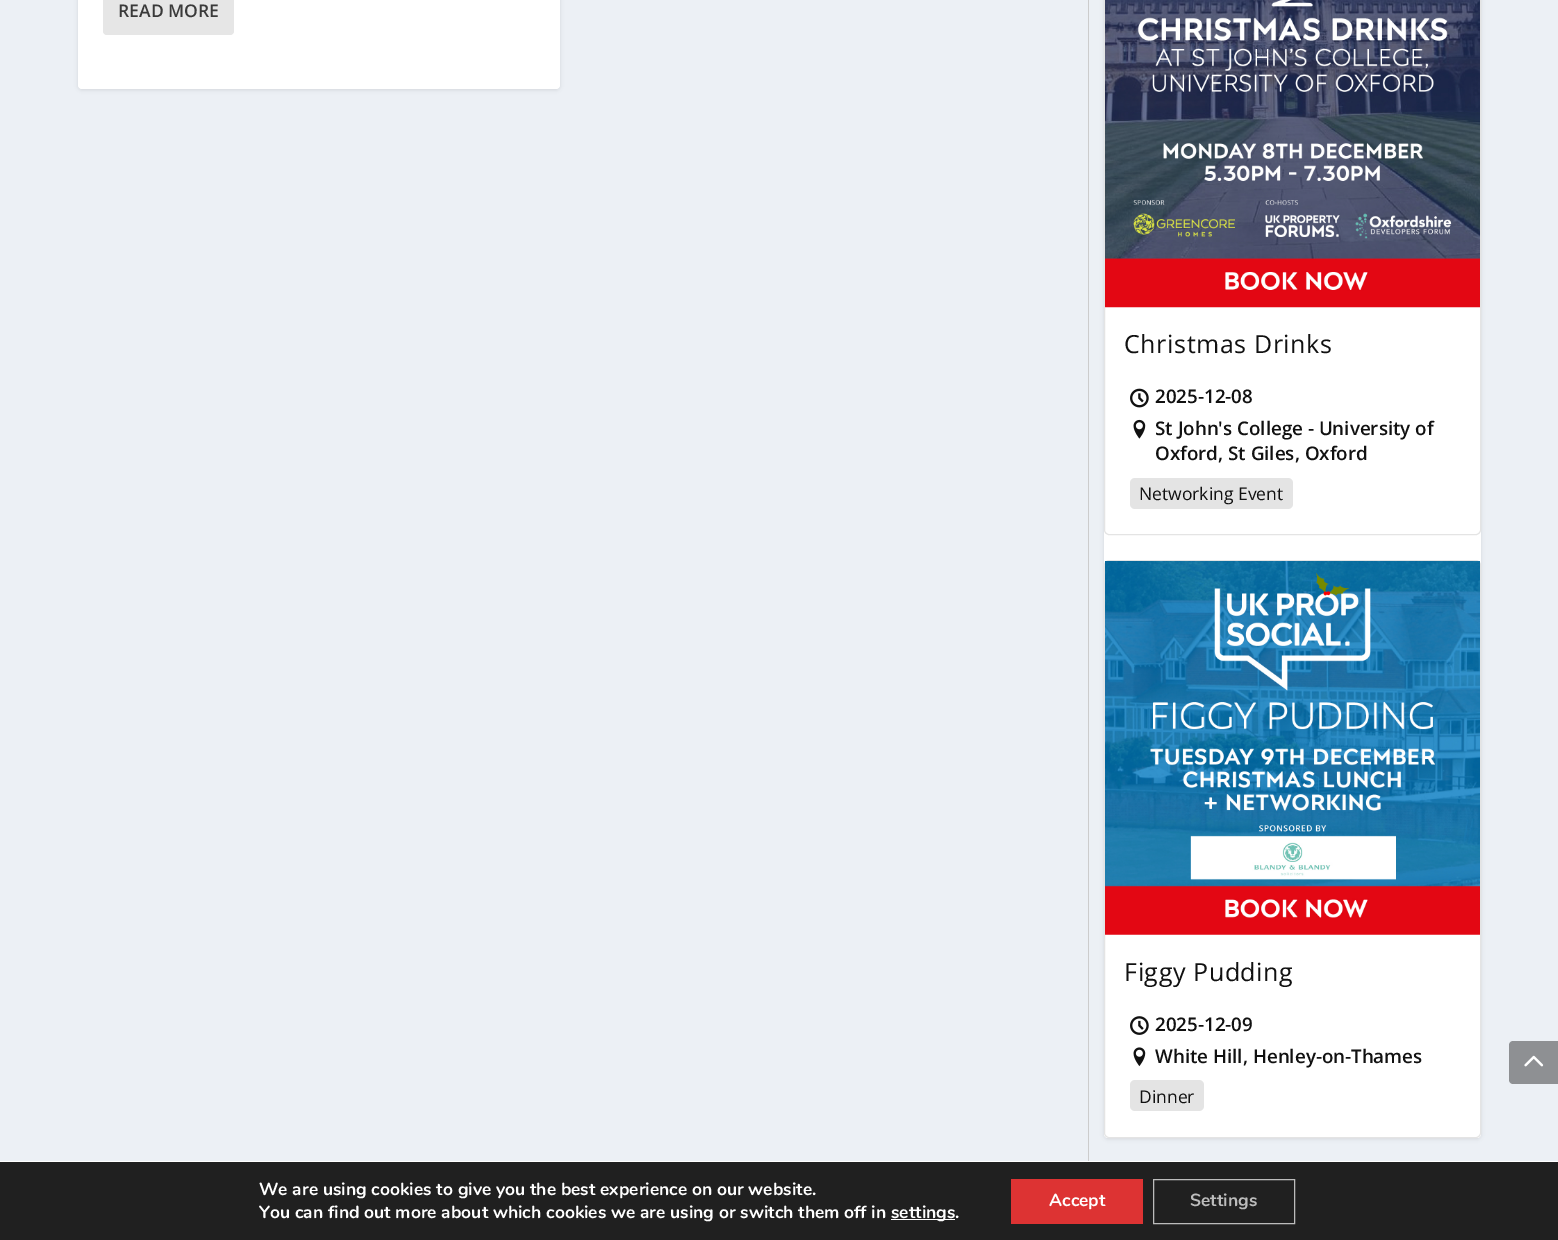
%!PS
<< /PageSize [1558 1240] /PageUsesTransparency true >> setpagedevice
/alpha { dup .setfillconstantalpha .setstrokeconstantalpha } def
/roundrect { 5 dict begin { /r /h /w /y /x } { exch def } forall
  x r add y moveto x w add y 2 copy h add r arct x w add y h add x 1 index r arct
  x y h add x y r arct x y 2 copy exch w add exch r arct closepath end } def
/shadow { 12 dict begin { /a /b /q /h /w /y /x } { exch def } forall gsave /was 0 def
  9 -2 -9 { dup b mul 4 div /e exch def 1 sub .425 mul 2.718 exch exp 1 add a .99 .min exch div /now exch def
    1 1 now sub 1 was sub div sub alpha /was now def
    w h .min e 2 mul add 0 gt { x e sub y e sub w e 2 mul add h e 2 mul add
      q e add b .6 mul add w h .min 2 div e add .min 0 .max roundrect fill } if } for grestore end } def
/picture { 5 dict begin { /h /w /y /x /name } { exch def } forall
  gsave x y translate w h scale
  w h 8 [w 0 0 h 0 0] name (r) file false 3 colorimage grestore end } def
0 .pushpdf14devicefilter
0 1240 translate 1 -1 scale
4 setmiterlimit
0.925 0.941 0.961 setrgbcolor
0 0 1558 1240 rectfill
gsave
newpath 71 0 moveto 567 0 lineto 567 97 lineto 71 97 lineto closepath 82 -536 moveto 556 -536 lineto 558 -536 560 -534 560 -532 curveto 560 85 lineto 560 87 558 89 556 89 curveto 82 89 lineto 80 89 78 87 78 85 curveto 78 -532 lineto 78 -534 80 -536 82 -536 curveto closepath eoclip newpath
0 setgray
78 -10 482 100 4 2 0.1 shadow
grestore
1 setgray
78 -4 482 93 4 roundrect fill
0.902 setgray
103 -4 131 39 4 roundrect fill
/OpenSans-SemiBold [17.5 0 0 -17.5 0 0] selectfont
0.227 setgray
118 17 moveto (READ MORE) show
0.8 setgray
1088 0 1 1168 rectfill
0 setgray
1104 -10 377 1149 4 2 0.1 shadow
1 setgray
1104 -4 377 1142 4 roundrect fill
0.894 setgray
1104.5 -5.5 376 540 4.5 roundrect stroke
(img1.rgb) 1105 0 375 308 picture
/OpenSans-Regular [25 0 0 -25 0 0] selectfont
0.067 setgray
1124 353 moveto 0.6 0 (Christmas Drinks) ashow
(img2.rgb) 1130 388 19 20 picture
/OpenSans-SemiBold [18.75 0 0 -18.75 0 0] selectfont
1155 403 moveto (2025-12-08) show
(img3.rgb) 1133 419 13 20 picture
1155 435 moveto (St John's College - University of) show
1155 460 moveto (Oxford, St Giles, Oxford) show
0.894 setgray
1130 478 163 31 5 roundrect fill
/OpenSans-Regular [17.5 0 0 -17.5 0 0] selectfont
0.067 setgray
1139 500 moveto (Networking Event) show
0.894 setgray
1104.5 560.5 376 577 4.5 roundrect stroke
(img4.rgb) 1105 561 375 374 picture
/OpenSans-Regular [25 0 0 -25 0 0] selectfont
0.067 setgray
1124 981 moveto 0.6 0 (Figgy Pudding) ashow
(img5.rgb) 1130 1016 19 19 picture
/OpenSans-SemiBold [18.75 0 0 -18.75 0 0] selectfont
1155 1031 moveto (2025-12-09) show
(img6.rgb) 1133 1047 13 20 picture
1155 1063 moveto (White Hill, Henley-on-Thames) show
0.894 setgray
1130 1080 74 31 5 roundrect fill
/OpenSans-Regular [17.5 0 0 -17.5 0 0] selectfont
0.067 setgray
1139 1103 moveto (Dinner) show
0.557 0.565 0.576 setrgbcolor
newpath 1513 1041 moveto 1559 1041 lineto 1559 1084 lineto 1513 1084 lineto 1511 1084 1509 1082 1509 1080 curveto 1509 1045 lineto 1509 1043 1511 1041 1513 1041 curveto closepath fill
(img7.rgb) 1524 1055 20 12 picture
0.125 setgray
0 1162 1558 78 rectfill
1 setgray
0 1161 1558 1 rectfill
/Nunito-Bold [17.5 0 0 -17.5 0 0] selectfont
259 1195 moveto (We are using cookies to give you the best experience on our website.) show
259 1218 moveto (You can find out more about which cookies we are using or switch them off in) show
891 1219 64 1 rectfill
891 1218 moveto (settings.) show
0.867 0.2 0.2 setrgbcolor
1011 1179 132 45 rectfill
1 setgray
1049 1206 moveto (Accept) show
0.737 setgray
1153.5 1179.5 141 44 rectstroke
1190 1206 moveto (Settings) show
.poppdf14devicefilter showpage
